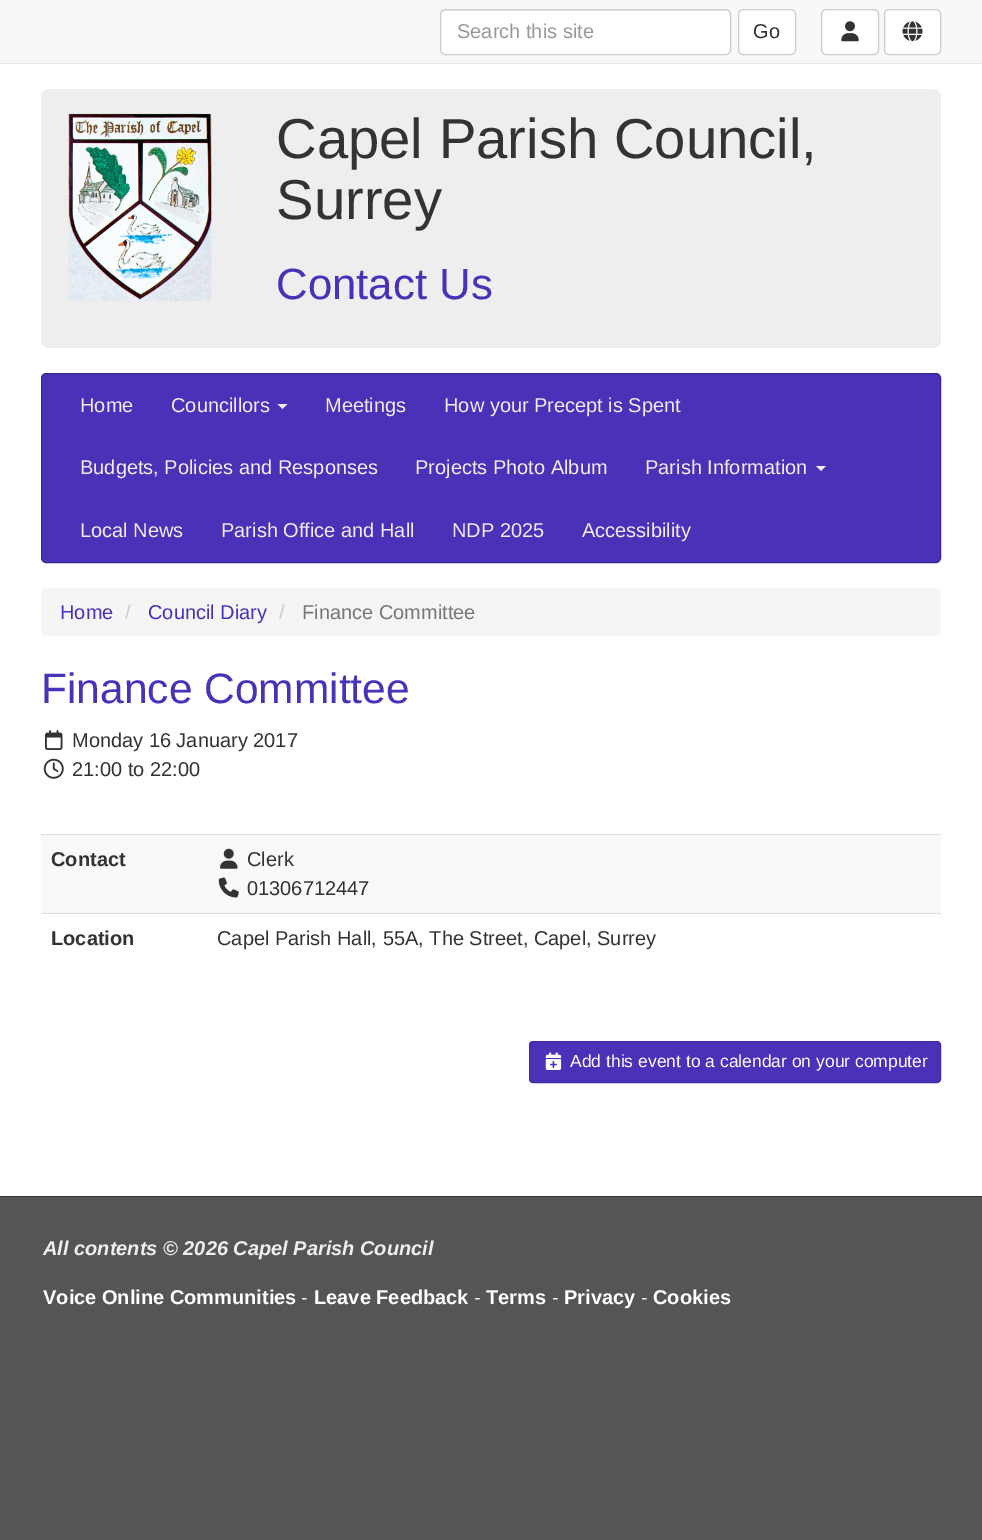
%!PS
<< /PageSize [982 1540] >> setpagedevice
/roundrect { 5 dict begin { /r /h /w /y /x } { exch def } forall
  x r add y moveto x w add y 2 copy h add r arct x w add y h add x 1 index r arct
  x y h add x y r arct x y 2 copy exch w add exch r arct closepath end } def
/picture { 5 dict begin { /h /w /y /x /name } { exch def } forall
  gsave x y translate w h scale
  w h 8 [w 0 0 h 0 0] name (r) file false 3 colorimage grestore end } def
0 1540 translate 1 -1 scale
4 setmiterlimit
1 setgray
0 0 982 1540 rectfill
0.973 setgray
0 0 982 63 rectfill
0.906 setgray
0 63 982 1 rectfill
1 setgray
440 9 291 46 5 roundrect fill
0.925 setgray
newpath 445 11 moveto 726 11 lineto 728 11 730 13 730 15 curveto 730 12 729 10 726 10 curveto 445 10 lineto 442 10 441 12 441 15 curveto 441 13 443 11 445 11 curveto closepath fill
0.8 setgray
440.5 9.5 290 45 4.5 roundrect stroke
/LiberationSans-Regular [20 0 0 -20 0 0] selectfont
0.6 setgray
457 38 moveto (Search this site) show
1 setgray
738.5 9.5 57 45 4.5 roundrect gsave fill grestore
0.8 setgray
stroke
0.2 setgray
753 38 moveto (Go) show
1 setgray
821.5 9.5 57 45 4.5 roundrect gsave fill grestore
0.8 setgray
stroke
(img1.rgb) 841 21 18 21 picture
1 setgray
884.5 9.5 56 45 4.5 roundrect gsave fill grestore
0.8 setgray
stroke
(img2.rgb) 902 21 21 21 picture
0.933 setgray
41 89 900 259 8 roundrect fill
(img3.rgb) 68 113 144 188 picture
/LiberationSans-Regular [56.25 0 0 -56.25 0 0] selectfont
0.2 setgray
276 158 moveto (Capel Parish Council,) show
276 219 moveto (Surrey) show
/LiberationSans-Regular [43.75 0 0 -43.75 0 0] selectfont
0.294 0.188 0.722 setrgbcolor
276 299 moveto (Contact Us) show
41.5 373.5 899 189 4.5 roundrect gsave fill grestore
0.235 0.149 0.576 setrgbcolor
stroke
/LiberationSans-Regular [20 0 0 -20 0 0] selectfont
0.933 setgray
80 412 moveto (Home) show
171 412 moveto (Councillors) show
newpath 277.5 404 moveto 287.5 404 lineto 282.5 409 lineto closepath fill
325 412 moveto (Meetings) show
444 412 moveto (How your Precept is Spent) show
80 474 moveto (Budgets, Policies and Responses) show
415 474 moveto (Projects Photo Album) show
645 474 moveto (Parish Information) show
newpath 816 466 moveto 826 466 lineto 821 471 lineto closepath fill
80 537 moveto (Local News) show
221 537 moveto (Parish Office and Hall) show
452 537 moveto (NDP 2025) show
582 537 moveto (Accessibility) show
0.961 setgray
41 588 900 48 5 roundrect fill
0.294 0.188 0.722 setrgbcolor
60 619 moveto (Home) show
0.8 setgray
125 619 moveto (/) show
0.294 0.188 0.722 setrgbcolor
148 619 moveto (Council Diary) show
0.8 setgray
279 619 moveto (/) show
0.467 setgray
302 619 moveto (Finance Committee) show
/LiberationSans-Regular [42.5 0 0 -42.5 0 0] selectfont
0.294 0.188 0.722 setrgbcolor
41 703 moveto (Finance Committee) show
(img4.rgb) 45 730 18 20 picture
/LiberationSans-Regular [20 0 0 -20 0 0] selectfont
0.2 setgray
72 747 moveto (Monday 16 January 2017) show
(img5.rgb) 43 758 21 21 picture
72 776 moveto (21:00 to 22:00) show
0.976 setgray
41 835 900 78 rectfill
/LiberationSans-Bold [20 0 0 -20 0 0] selectfont
0.2 setgray
51 866 moveto (Contact) show
0.867 setgray
41 834 900 1 rectfill
(img6.rgb) 220 848 18 21 picture
/LiberationSans-Regular [20 0 0 -20 0 0] selectfont
0.2 setgray
247 866 moveto (Clerk) show
(img7.rgb) 218 877 21 21 picture
247 895 moveto (01306712447) show
/LiberationSans-Bold [20 0 0 -20 0 0] selectfont
51 945 moveto (Location) show
0.867 setgray
41 913 900 1 rectfill
/LiberationSans-Regular [20 0 0 -20 0 0] selectfont
0.2 setgray
217 945 moveto (Capel Parish Hall, 55A, The Street, Capel, Surrey) show
0.294 0.188 0.722 setrgbcolor
529.5 1041.5 411 41 3.5 roundrect gsave fill grestore
0.263 0.169 0.647 setrgbcolor
stroke
(img8.rgb) 545 1052 17 18 picture
/LiberationSans-Regular [17.5 0 0 -17.5 0 0] selectfont
1 setgray
570 1067 moveto (Add this event to a calendar on your computer) show
0.333 setgray
newpath -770 1196 moveto -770 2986 lineto 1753 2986 lineto 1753 1196 lineto closepath 0 1196 moveto 0 1446 lineto 982 1446 lineto 982 1196 lineto closepath eofill
0 1197 982 249 rectfill
0.2 setgray
0 1196 982 1 rectfill
/LiberationSans-BoldItalic [20 0 0 -20 0 0] selectfont
0.933 setgray
43 1255 moveto (All contents © 2026 Capel Parish Council) show
/LiberationSans-Bold [20 0 0 -20 0 0] selectfont
1 setgray
43 1304 moveto (Voice Online Communities) show
/LiberationSans-Regular [20 0 0 -20 0 0] selectfont
0.933 setgray
301 1304 moveto (-) show
/LiberationSans-Bold [20 0 0 -20 0 0] selectfont
1 setgray
314 1304 moveto (Leave Feedback) show
/LiberationSans-Regular [20 0 0 -20 0 0] selectfont
0.933 setgray
474 1304 moveto (-) show
/LiberationSans-Bold [20 0 0 -20 0 0] selectfont
1 setgray
486 1304 moveto (Terms) show
/LiberationSans-Regular [20 0 0 -20 0 0] selectfont
0.933 setgray
552 1304 moveto (-) show
/LiberationSans-Bold [20 0 0 -20 0 0] selectfont
1 setgray
564 1304 moveto (Privacy) show
/LiberationSans-Regular [20 0 0 -20 0 0] selectfont
0.933 setgray
641 1304 moveto (-) show
/LiberationSans-Bold [20 0 0 -20 0 0] selectfont
1 setgray
653 1304 moveto (Cookies) show
showpage
